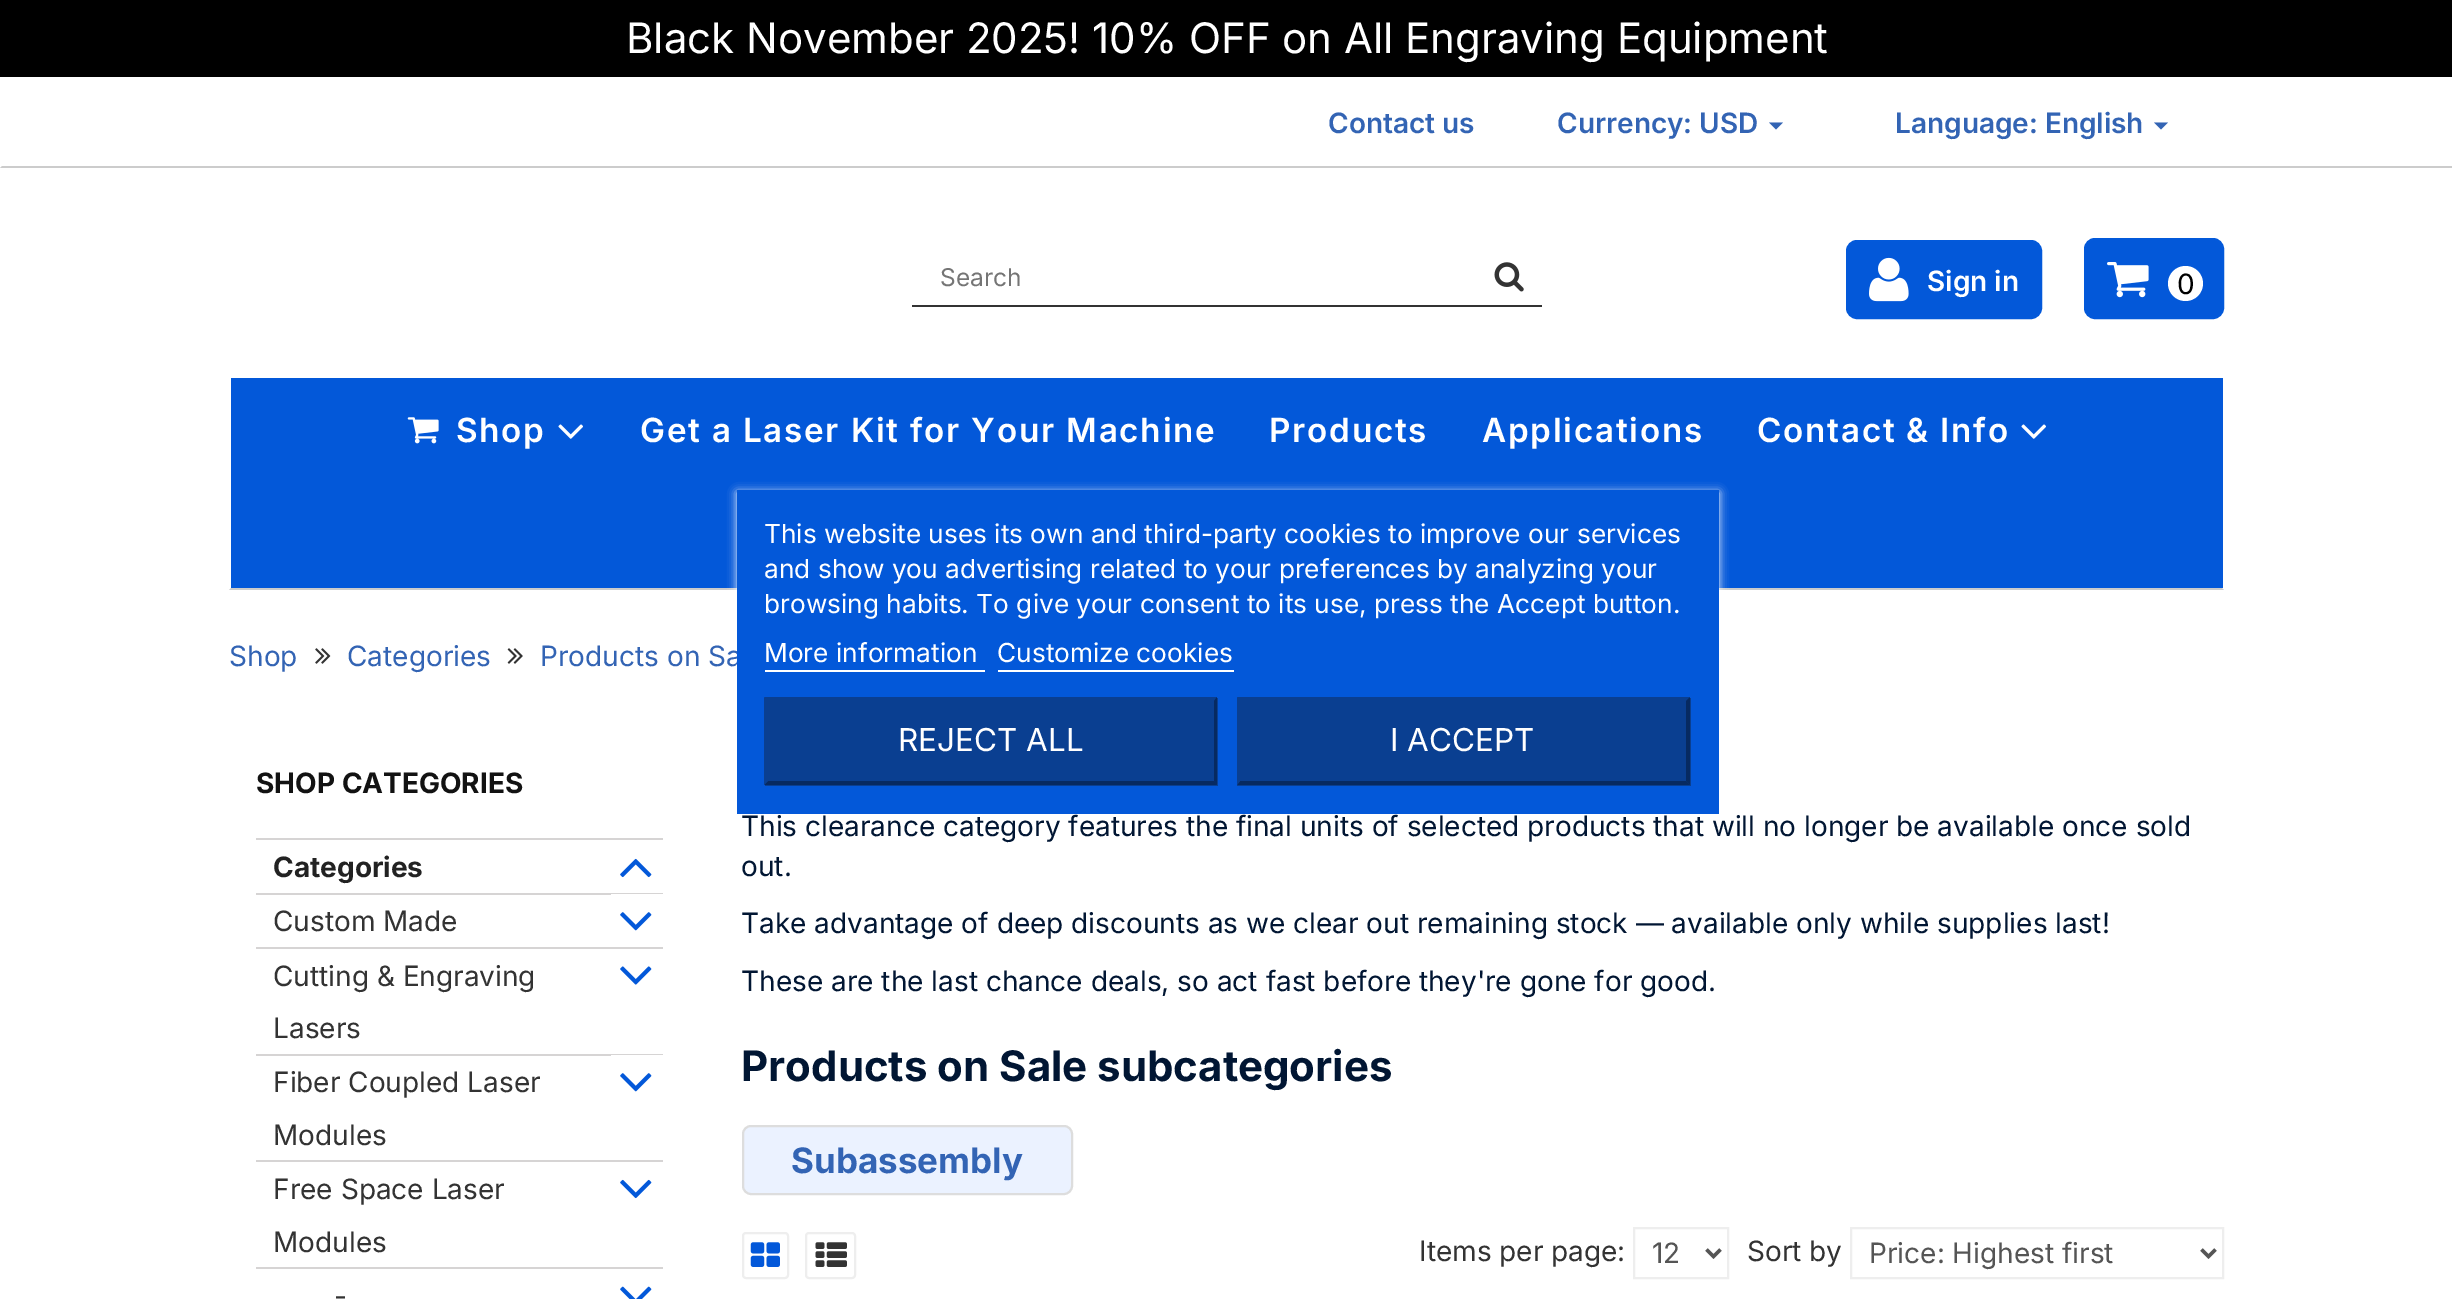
%!PS
<< /PageSize [2452 1299] /PageUsesTransparency true >> setpagedevice
/alpha { dup .setfillconstantalpha .setstrokeconstantalpha } def
/roundrect { 5 dict begin { /r /h /w /y /x } { exch def } forall
  x r add y moveto x w add y 2 copy h add r arct x w add y h add x 1 index r arct
  x y h add x y r arct x y 2 copy exch w add exch r arct closepath end } def
/shadow { 12 dict begin { /a /b /q /h /w /y /x } { exch def } forall gsave /was 0 def
  9 -2 -9 { dup b mul 4 div /e exch def 1 sub .425 mul 2.718 exch exp 1 add a .99 .min exch div /now exch def
    1 1 now sub 1 was sub div sub alpha /was now def
    w h .min e 2 mul add 0 gt { x e sub y e sub w e 2 mul add h e 2 mul add
      q e add b .6 mul add w h .min 2 div e add .min 0 .max roundrect fill } if } for grestore end } def
/picture { 5 dict begin { /h /w /y /x /name } { exch def } forall
  gsave x y translate w h scale
  w h 8 [w 0 0 h 0 0] name (r) file false 3 colorimage grestore end } def
0 .pushpdf14devicefilter
0 1299 translate 1 -1 scale
4 setmiterlimit
1 setgray
0 0 2452 1299 rectfill
0 setgray
0 0 2452 77 rectfill
/Inter-Regular [42 0 0 -42 0 0] selectfont
1 setgray
626 53 moveto (Black November 2025! 10% OFF on All Engraving Equipment) show
0.8 setgray
newpath 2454 168 moveto 0 168 lineto 2 166 lineto 2452 166 lineto closepath fill
/Inter-SemiBold [28 0 0 -28 0 0] selectfont
0.2 0.392 0.706 setrgbcolor
1328 133 moveto (Contact us) show
1557 133 moveto (Currency: USD) show
newpath 1769 122.5 moveto 1783 122.5 lineto 1776 129.5 lineto closepath fill
1895 133 moveto (Language: English) show
newpath 2154 122.5 moveto 2168 122.5 lineto 2161 129.5 lineto closepath fill
0.2 setgray
912 305 630 2 rectfill
/Inter-Regular [24.5 0 0 -24.5 0 0] selectfont
0.459 setgray
940 286 moveto (Search) show
(img1.rgb) 1494 262 30 30 picture
0.012 0.345 0.851 setrgbcolor
1847 241 194 77 10 roundrect gsave fill grestore
0.012 0.349 0.855 setrgbcolor
2 setlinewidth
stroke
(img2.rgb) 1869 257 40 45 picture
/Inter-SemiBold [28 0 0 -28 0 0] selectfont
1 setgray
1927 291 moveto (Sign in) show
0.012 0.345 0.851 setrgbcolor
2085 239 138 79 10 roundrect gsave fill grestore
0.012 0.349 0.855 setrgbcolor
stroke
(img3.rgb) 2107 262 42 36 picture
1 setgray
newpath 2185.5 283.5 17.5 0 360 arc closepath fill
/Inter-Regular [28 0 0 -28 0 0] selectfont
0 setgray
2177 294 moveto (0) show
0.8 setgray
newpath 2224 590 moveto 229 590 lineto 231 588 lineto 2222 588 lineto closepath fill
0.012 0.345 0.851 setrgbcolor
231 378 1992 210 rectfill
(img4.rgb) 407 417 32 27 picture
/Inter-SemiBold [33.25 0 0 -33.25 0 0] selectfont
1 setgray
456 442 moveto 1.75 0 (Shop) ashow
(img5.rgb) 558 424 25 15 picture
640 442 moveto 1.75 0 (Get a Laser Kit for Your Machine) ashow
1269 442 moveto 1.75 0 (Products) ashow
1482 442 moveto 1.75 0 (Applications) ashow
1757 442 moveto 1.75 0 (Contact & Info) ashow
(img5.rgb) 2021 424 25 15 picture
737 492 982 324 0 4.5 1 shadow
/Inter-Regular [28 0 0 -28 0 0] selectfont
0.2 0.392 0.706 setrgbcolor
540 666 moveto (Products on Sa) show
0.012 0.345 0.851 setrgbcolor
737 490 982 324 rectfill
/Inter-Regular [26.25 0 0 -26.25 0 0] selectfont
1 setgray
764 543 moveto (This website uses its own and third-party cookies to improve our services) show
764 578 moveto (and show you advertising related to your preferences by analyzing your) show
764 613 moveto (browsing habits. To give your consent to its use, press the Accept button.) show
764 662 moveto (More information) show
765 670 220 2 rectfill
997 662 moveto (Customize cookies) show
998 670 236 2 rectfill
0.039 0.247 0.569 setrgbcolor
765 698 453 88 rectfill
newpath 764 697 moveto 1217 697 lineto 1214 701 lineto 768 701 lineto closepath fill
0.027 0.165 0.38 setrgbcolor
newpath 1217 697 moveto 1217 785 lineto 1214 781 lineto 1214 701 lineto closepath fill
newpath 1217 785 moveto 764 785 lineto 768 781 lineto 1214 781 lineto closepath fill
0.039 0.247 0.569 setrgbcolor
newpath 764 785 moveto 764 697 lineto 768 701 lineto 768 781 lineto closepath fill
/Inter-Regular [31.5 0 0 -31.5 0 0] selectfont
1 setgray
898 751 moveto (REJECT ALL) show
0.039 0.247 0.569 setrgbcolor
1237 698 454 88 rectfill
newpath 1237 697 moveto 1690 697 lineto 1686 701 lineto 1240 701 lineto closepath fill
0.027 0.165 0.38 setrgbcolor
newpath 1690 697 moveto 1690 785 lineto 1686 781 lineto 1686 701 lineto closepath fill
newpath 1690 785 moveto 1237 785 lineto 1240 781 lineto 1686 781 lineto closepath fill
0.039 0.247 0.569 setrgbcolor
newpath 1237 785 moveto 1237 697 lineto 1240 701 lineto 1240 781 lineto closepath fill
1 setgray
1390 751 moveto (I ACCEPT) show
/Inter-Regular [28 0 0 -28 0 0] selectfont
0.2 0.392 0.706 setrgbcolor
229 666 moveto (Shop) show
(img6.rgb) 315 648 16 16 picture
347 666 moveto (Categories) show
(img7.rgb) 507 648 16 16 picture
/Inter-Bold [28 0 0 -28 0 0] selectfont
0.071 setgray
256 793 moveto (SHOP CATEGORIES) show
0.839 0.831 0.831 setrgbcolor
256 838 407 2 rectfill
256 893 407 2 rectfill
0.133 setgray
273 877 moveto (Categories) show
(img8.rgb) 620 858 32 20 picture
0.839 0.831 0.831 setrgbcolor
256 947 407 2 rectfill
/Inter-Regular [28 0 0 -28 0 0] selectfont
0.2 setgray
273 931 moveto (Custom Made) show
1 setgray
611 894 52 1 rectfill
(img9.rgb) 620 912 32 19 picture
0.839 0.831 0.831 setrgbcolor
256 1054 407 2 rectfill
0.2 setgray
273 986 moveto (Cutting & Engraving) show
273 1038 moveto (Lasers) show
(img10.rgb) 620 966 32 19 picture
0.839 0.831 0.831 setrgbcolor
256 1160 407 2 rectfill
0.2 setgray
273 1092 moveto (Fiber Coupled Laser) show
273 1145 moveto (Modules) show
1 setgray
611 1055 52 1 rectfill
(img9.rgb) 620 1073 32 19 picture
0.839 0.831 0.831 setrgbcolor
256 1267 407 2 rectfill
0.2 setgray
273 1199 moveto (Free Space Laser) show
273 1252 moveto (Modules) show
(img11.rgb) 620 1179 32 20 picture
334 1306 moveto (-) show
(img12.rgb) 620 1286 32 13 picture
0.004 0.086 0.2 setrgbcolor
741 836 moveto (This clearance category features the final units of selected products that will no longer be available once sold) show
741 876 moveto (out.) show
741 933 moveto (Take advantage of deep discounts as we clear out remaining stock — available only while supplies last!) show
741 991 moveto (These are the last chance deals, so act fast before they're gone for good.) show
/Inter-Bold [42 0 0 -42 0 0] selectfont
741 1081 moveto (Products on Sale subcategories) show
0.922 0.949 1 setrgbcolor
743 1126 329 68 8 roundrect gsave fill grestore
0.867 setgray
stroke
/Inter-Bold [35 0 0 -35 0 0] selectfont
0.2 0.392 0.706 setrgbcolor
791 1173 moveto (Subassembly) show
0.933 setgray
743 1233 45 45 3 roundrect stroke
(img13.rgb) 750 1242 30 25 picture
806 1233 49 45 3 roundrect stroke
(img14.rgb) 815 1242 32 25 picture
/Inter-Regular [28 0 0 -28 0 0] selectfont
0.2 setgray
1419 1261 moveto (Items per page:) show
0.933 setgray
1634 1228 94 50 rectstroke
0.333 setgray
3.5 setlinewidth
newpath 1706.5 1249.5 moveto 1713.5 1256.5 lineto 1720.5 1249.5 lineto stroke
1652 1263 moveto (12) show
0.2 setgray
1747 1261 moveto (Sort by) show
0.933 setgray
2 setlinewidth
1851 1228 372 50 rectstroke
0.333 setgray
3.5 setlinewidth
newpath 2201.5 1249.5 moveto 2208.5 1256.5 lineto 2215.5 1249.5 lineto stroke
1869 1263 moveto (Price: Highest first) show
.poppdf14devicefilter showpage
